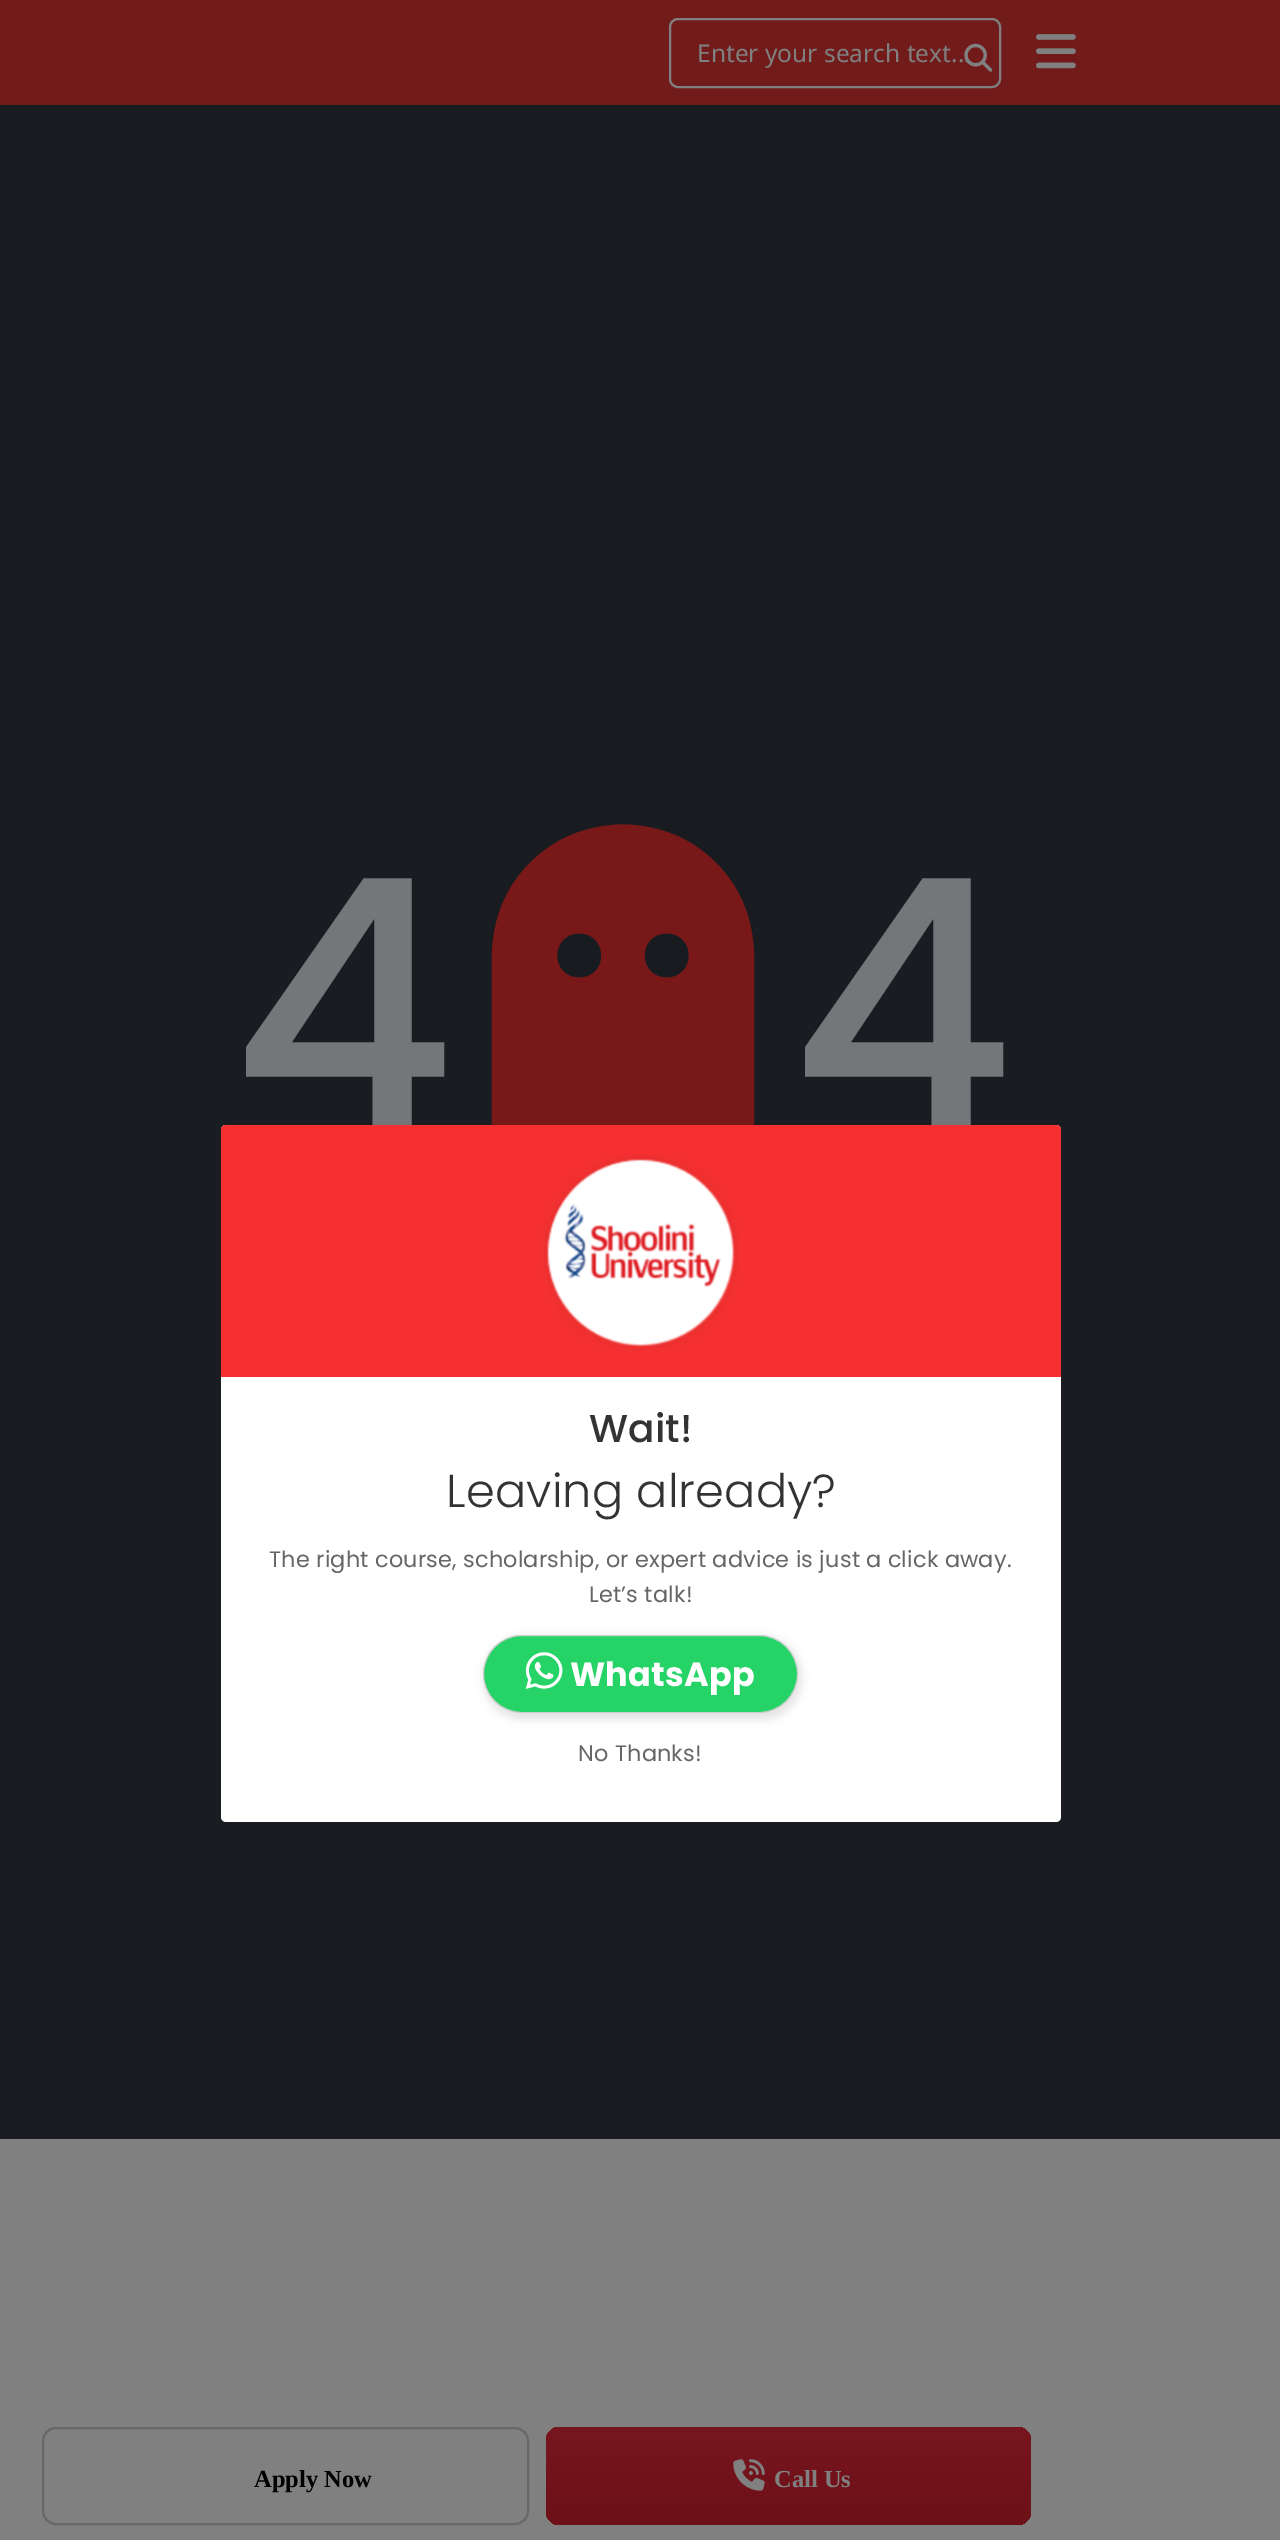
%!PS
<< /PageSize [1280 2540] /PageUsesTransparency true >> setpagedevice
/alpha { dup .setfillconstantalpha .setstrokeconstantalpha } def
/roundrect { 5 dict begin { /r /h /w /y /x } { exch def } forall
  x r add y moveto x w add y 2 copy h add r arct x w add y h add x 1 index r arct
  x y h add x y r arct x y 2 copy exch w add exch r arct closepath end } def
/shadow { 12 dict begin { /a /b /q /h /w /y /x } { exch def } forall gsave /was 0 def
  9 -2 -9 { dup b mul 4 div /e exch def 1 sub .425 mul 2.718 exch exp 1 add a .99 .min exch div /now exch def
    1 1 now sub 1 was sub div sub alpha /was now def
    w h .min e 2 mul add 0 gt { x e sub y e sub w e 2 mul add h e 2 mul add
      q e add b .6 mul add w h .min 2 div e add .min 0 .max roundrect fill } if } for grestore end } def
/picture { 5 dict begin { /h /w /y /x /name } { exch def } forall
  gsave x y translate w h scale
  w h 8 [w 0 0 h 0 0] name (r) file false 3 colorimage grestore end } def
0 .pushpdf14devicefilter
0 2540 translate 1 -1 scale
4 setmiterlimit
0.502 setgray
0 0 1280 2540 rectfill
0.447 0.106 0.106 setrgbcolor
0 0 1280 105 rectfill
0.502 setgray
2 setlinewidth
670 19 330 68 8 roundrect stroke
/NotoSans-Regular [24.5 0 0 -24.5 0 0] selectfont
697 62 moveto (Enter your search text..) show
(img1.rgb) 964 43 29 29 picture
(img2.rgb) 1036 34 40 35 picture
0.404 setgray
43 2428 485 96 13 roundrect stroke
/LiberationSerif-Bold [24.5 0 0 -24.5 0 0] selectfont
0 setgray
254 2487 moveto (Apply Now) show
gsave 546 2427 485 98 14 roundrect clip newpath
<< /ShadingType 2 /ColorSpace /DeviceRGB /Coords [788 2427 788 2525] /Extend [true true] /Function << /FunctionType 2 /Domain [0 1] /C0 [0.467 0.086 0.118] /C1 [0.427 0.063 0.094] /N 1 >> >> shfill grestore
(img3.rgb) 733 2459 32 32 picture
0.502 setgray
774 2487 moveto (Call Us) show
0.098 0.114 0.129 setrgbcolor
0 105 1280 2034 rectfill
/Poppins-Medium [350 0 0 -350 0 0] selectfont
0.455 0.463 0.475 setrgbcolor
230 1130 moveto 35 0 (4) ashow
(img4.rgb) 491 824 264 301 picture
789 1130 moveto 35 0 (4) ashow
1 setgray
221 1125 840 697 5 roundrect fill
0.965 0.188 0.188 setrgbcolor
newpath 226 1125 moveto 1056 1125 lineto 1059 1125 1061 1127 1061 1130 curveto 1061 1377 lineto 221 1377 lineto 221 1130 lineto 221 1127 223 1125 226 1125 curveto closepath fill
(img5.rgb) 542 1154 197 197 picture
/Poppins-Medium [39 0 0 -39 0 0] selectfont
0.2 setgray
589 1442 moveto 0.2 0 (Wait!) ashow
/Poppins-Light [46.25 0 0 -46.25 0 0] selectfont
446 1507 moveto 0.2 0 (Leaving already?) ashow
/Poppins-Regular [22.4 0 0 -22.4 0 0] selectfont
0.4 setgray
269 1567 moveto 0.2 0 (The right course, scholarship, or expert advice is just a click away.) ashow
589 1602 moveto 0.2 0 (Let’s talk!) ashow
0 setgray
483 1636 319 84 42 4 0.1 shadow
0.145 0.827 0.4 setrgbcolor
483.5 1635.5 314 77 38.5 roundrect gsave fill grestore
0.808 setgray
1 setlinewidth
stroke
(img6.rgb) 525 1652 38 37 picture
/Poppins-Bold [33.5 0 0 -33.5 0 0] selectfont
1 setgray
570 1686 moveto 0.2 0 (WhatsApp) ashow
/Poppins-Regular [22.4 0 0 -22.4 0 0] selectfont
0.4 setgray
578 1761 moveto 0.2 0 (No Thanks!) ashow
.poppdf14devicefilter showpage
